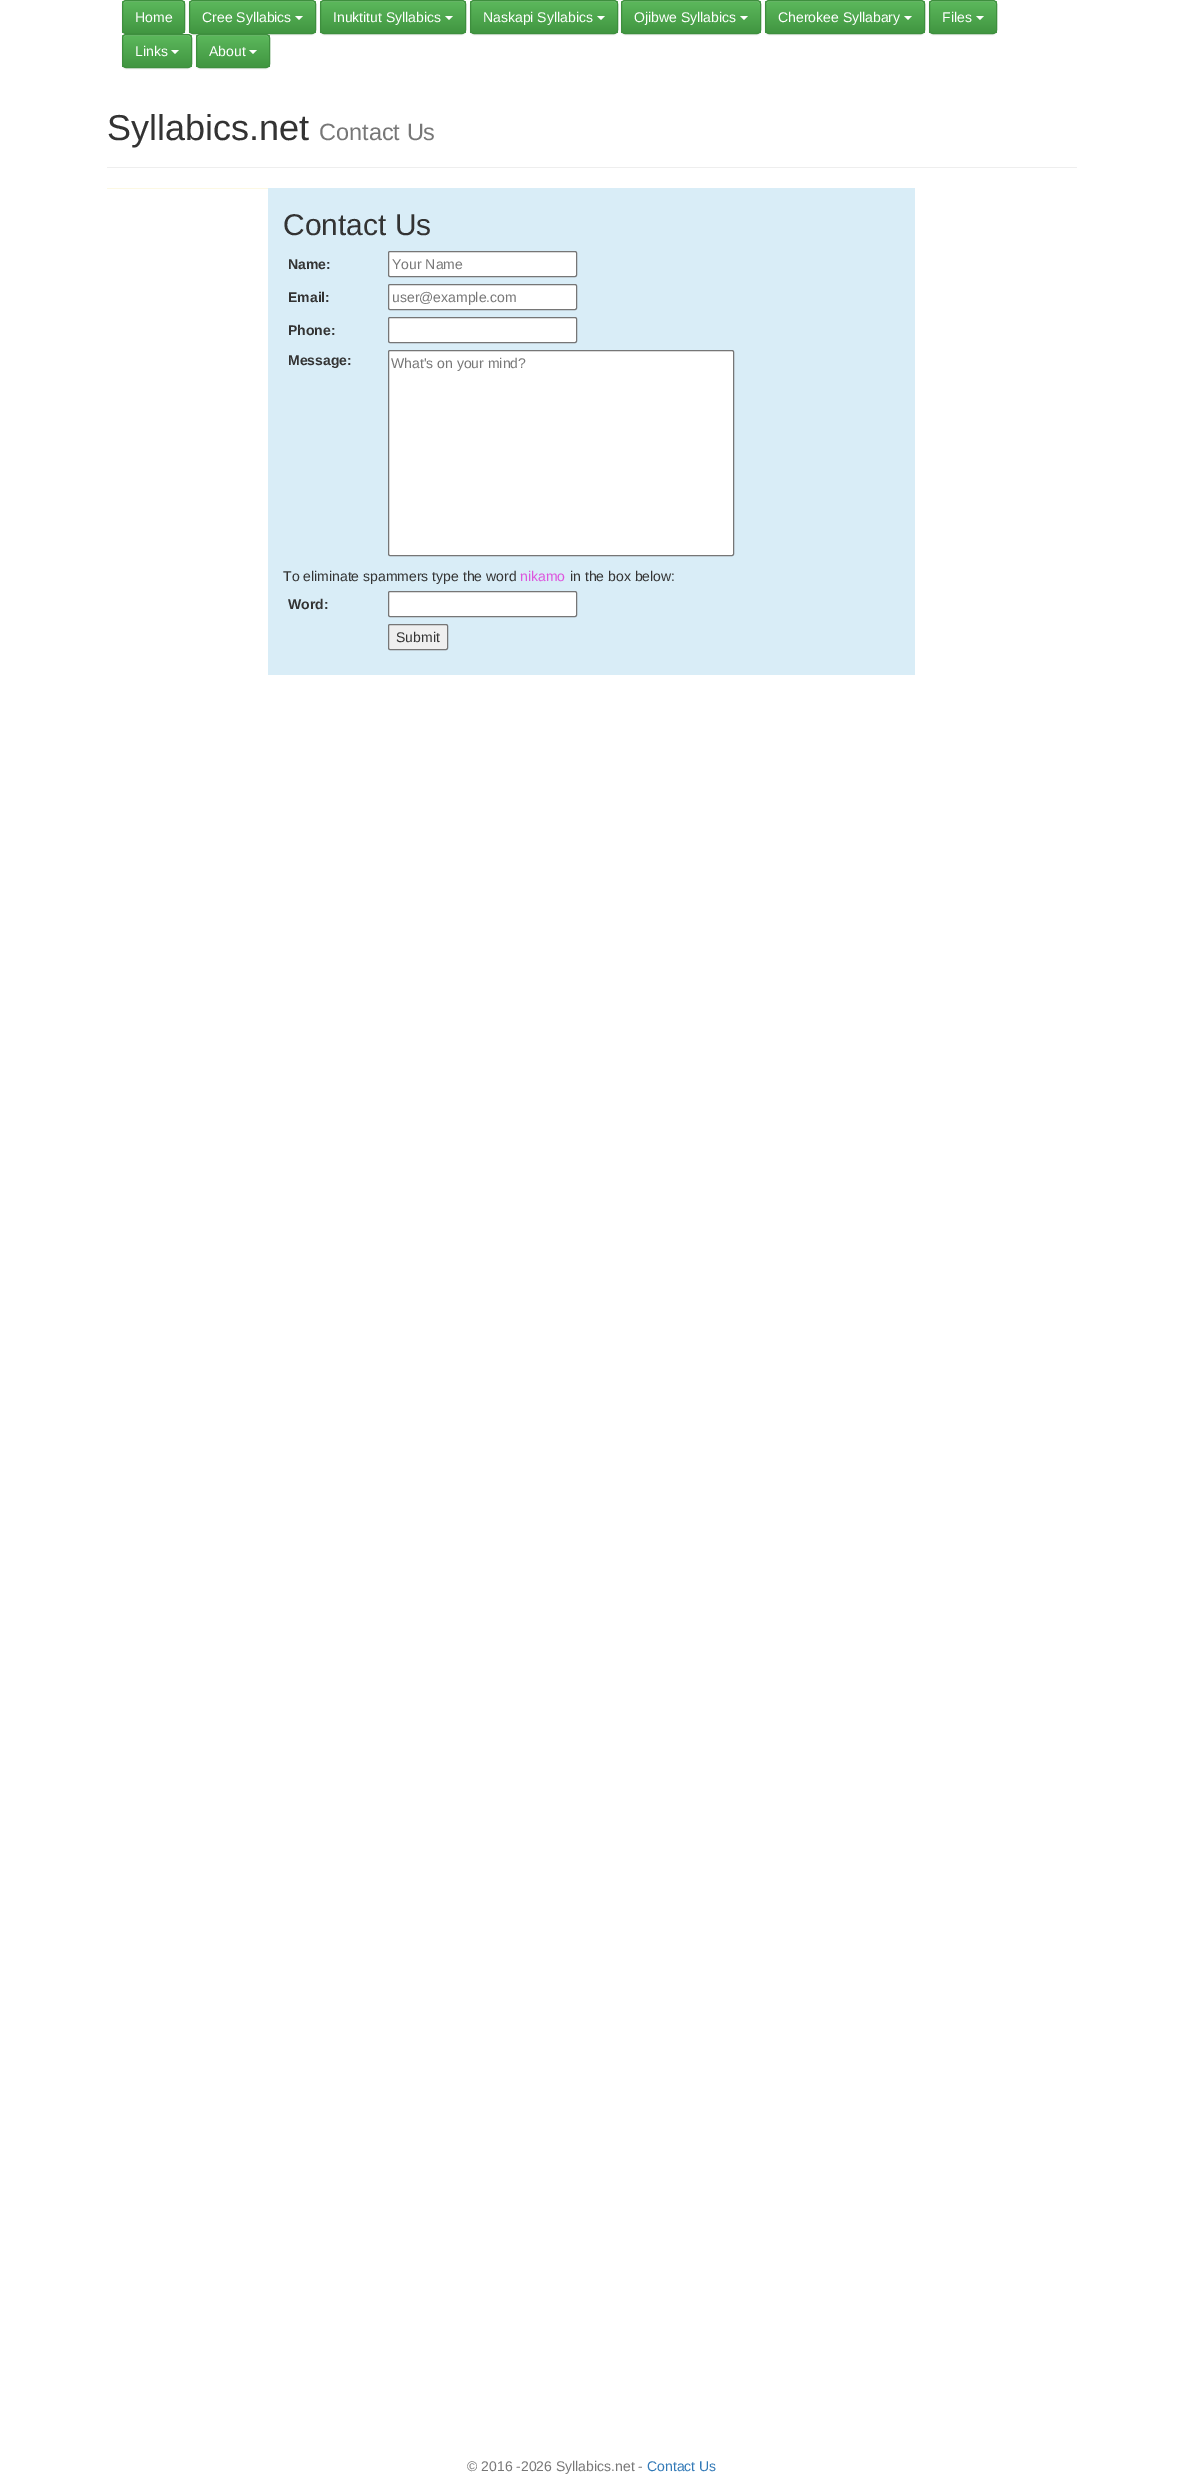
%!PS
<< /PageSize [1183 2486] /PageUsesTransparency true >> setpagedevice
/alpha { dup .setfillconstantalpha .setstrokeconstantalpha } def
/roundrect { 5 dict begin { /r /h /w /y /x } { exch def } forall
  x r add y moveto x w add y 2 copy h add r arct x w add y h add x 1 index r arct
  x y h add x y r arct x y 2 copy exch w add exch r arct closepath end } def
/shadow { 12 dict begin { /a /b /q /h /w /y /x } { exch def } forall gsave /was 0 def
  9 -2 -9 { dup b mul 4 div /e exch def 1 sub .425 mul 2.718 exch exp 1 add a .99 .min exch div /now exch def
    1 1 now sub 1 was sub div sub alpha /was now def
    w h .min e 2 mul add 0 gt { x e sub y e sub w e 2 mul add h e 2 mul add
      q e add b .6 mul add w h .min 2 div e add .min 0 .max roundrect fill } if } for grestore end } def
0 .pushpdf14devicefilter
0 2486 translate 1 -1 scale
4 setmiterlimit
1 setgray
0 0 1183 2486 rectfill
0 setgray
122 1 63 34 4 0.5 0.07 shadow
gsave
122 0 63 34 4 roundrect clip newpath
gsave newpath 122 1 moveto 185 1 lineto 185 33 lineto 122 33 lineto closepath clip newpath
<< /ShadingType 2 /ColorSpace /DeviceRGB /Coords [154 1 154 33] /Extend [true true] /Function << /FunctionType 2 /Domain [0 1] /C0 [0.361 0.722 0.361] /C1 [0.255 0.588 0.255] /N 1 >> >> shfill grestore
grestore
0.455 0.761 0.455 setrgbcolor
newpath 126 2 moveto 181 2 lineto 183 2 184 3 184 5 curveto 184 -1 176 1 172 1 curveto 135 1 lineto 131 1 123 -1 123 5 curveto 123 3 124 2 126 2 curveto closepath fill
0.243 0.561 0.243 setrgbcolor
122.5 0.5 62 33 3.5 roundrect stroke
/LiberationSans-Regular [14 0 0 -14 0 0] selectfont
1 setgray
135 22 moveto (Home) show
0 setgray
189 1 127 34 4 0.5 0.07 shadow
gsave
189 0 127 34 4 roundrect clip newpath
gsave newpath 189 1 moveto 316 1 lineto 316 33 lineto 189 33 lineto closepath clip newpath
<< /ShadingType 2 /ColorSpace /DeviceRGB /Coords [253 1 253 33] /Extend [true true] /Function << /FunctionType 2 /Domain [0 1] /C0 [0.361 0.722 0.361] /C1 [0.255 0.588 0.255] /N 1 >> >> shfill grestore
grestore
0.455 0.761 0.455 setrgbcolor
newpath 193 2 moveto 312 2 lineto 314 2 315 3 315 5 curveto 315 3 315 1 313 1 curveto 193 1 lineto 191 1 190 3 190 5 curveto 190 3 191 2 193 2 curveto closepath fill
0.243 0.561 0.243 setrgbcolor
189.5 0.5 126 33 3.5 roundrect stroke
1 setgray
202 22 moveto (Cree Syllabics) show
newpath 295 16 moveto 303 16 lineto 299 20 lineto closepath fill
0 setgray
320 1 146 34 4 0.5 0.07 shadow
gsave
320 0 146 34 4 roundrect clip newpath
gsave newpath 320 1 moveto 466 1 lineto 466 33 lineto 320 33 lineto closepath clip newpath
<< /ShadingType 2 /ColorSpace /DeviceRGB /Coords [393 1 393 33] /Extend [true true] /Function << /FunctionType 2 /Domain [0 1] /C0 [0.361 0.722 0.361] /C1 [0.255 0.588 0.255] /N 1 >> >> shfill grestore
grestore
0.455 0.761 0.455 setrgbcolor
newpath 324 2 moveto 462 2 lineto 464 2 465 3 465 5 curveto 465 4 lineto 465 2 464 1 462 1 curveto 324 1 lineto 322 1 321 2 321 4 curveto 321 5 lineto 321 3 322 2 324 2 curveto closepath fill
0.243 0.561 0.243 setrgbcolor
320.5 0.5 145 33 3.5 roundrect stroke
1 setgray
333 22 moveto (Inuktitut Syllabics) show
newpath 445 16 moveto 453 16 lineto 449 20 lineto closepath fill
0 setgray
470 1 148 34 4 0.5 0.07 shadow
gsave
470 0 148 34 4 roundrect clip newpath
gsave newpath 470 1 moveto 618 1 lineto 618 33 lineto 470 33 lineto closepath clip newpath
<< /ShadingType 2 /ColorSpace /DeviceRGB /Coords [544 1 544 33] /Extend [true true] /Function << /FunctionType 2 /Domain [0 1] /C0 [0.361 0.722 0.361] /C1 [0.255 0.588 0.255] /N 1 >> >> shfill grestore
grestore
0.455 0.761 0.455 setrgbcolor
newpath 474 2 moveto 614 2 lineto 616 2 617 3 617 5 curveto 617 4 lineto 617 2 616 1 614 1 curveto 474 1 lineto 472 1 471 2 471 4 curveto 471 5 lineto 471 3 472 2 474 2 curveto closepath fill
0.243 0.561 0.243 setrgbcolor
470.5 0.5 147 33 3.5 roundrect stroke
1 setgray
483 22 moveto (Naskapi Syllabics) show
newpath 597 16 moveto 605 16 lineto 601 20 lineto closepath fill
0 setgray
621 1 140 34 4 0.5 0.07 shadow
gsave
621 0 140 34 4 roundrect clip newpath
gsave newpath 621 1 moveto 761 1 lineto 761 33 lineto 621 33 lineto closepath clip newpath
<< /ShadingType 2 /ColorSpace /DeviceRGB /Coords [691 1 691 33] /Extend [true true] /Function << /FunctionType 2 /Domain [0 1] /C0 [0.361 0.722 0.361] /C1 [0.255 0.588 0.255] /N 1 >> >> shfill grestore
grestore
0.455 0.761 0.455 setrgbcolor
newpath 625 2 moveto 757 2 lineto 759 2 760 3 760 5 curveto 760 3 760 1 758 1 curveto 624 1 lineto 622 1 622 3 622 5 curveto 622 3 623 2 625 2 curveto closepath fill
0.243 0.561 0.243 setrgbcolor
621.5 0.5 139 33 3.5 roundrect stroke
1 setgray
634 22 moveto (Ojibwe Syllabics) show
newpath 740 16 moveto 748 16 lineto 744 20 lineto closepath fill
0 setgray
765 1 160 34 4 0.5 0.07 shadow
gsave
765 0 160 34 4 roundrect clip newpath
gsave newpath 765 1 moveto 925 1 lineto 925 33 lineto 765 33 lineto closepath clip newpath
<< /ShadingType 2 /ColorSpace /DeviceRGB /Coords [845 1 845 33] /Extend [true true] /Function << /FunctionType 2 /Domain [0 1] /C0 [0.361 0.722 0.361] /C1 [0.255 0.588 0.255] /N 1 >> >> shfill grestore
grestore
0.455 0.761 0.455 setrgbcolor
newpath 769 2 moveto 921 2 lineto 923 2 924 3 924 5 curveto 924 3 923 1 921 1 curveto 768 1 lineto 766 1 766 3 766 5 curveto 766 3 767 2 769 2 curveto closepath fill
0.243 0.561 0.243 setrgbcolor
765.5 0.5 159 33 3.5 roundrect stroke
1 setgray
778 22 moveto (Cherokee Syllabary) show
newpath 904 16 moveto 912 16 lineto 908 20 lineto closepath fill
0 setgray
929 1 68 34 4 0.5 0.07 shadow
gsave
929 0 68 34 4 roundrect clip newpath
gsave newpath 929 1 moveto 997 1 lineto 997 33 lineto 929 33 lineto closepath clip newpath
<< /ShadingType 2 /ColorSpace /DeviceRGB /Coords [963 1 963 33] /Extend [true true] /Function << /FunctionType 2 /Domain [0 1] /C0 [0.361 0.722 0.361] /C1 [0.255 0.588 0.255] /N 1 >> >> shfill grestore
grestore
0.455 0.761 0.455 setrgbcolor
newpath 933 2 moveto 993 2 lineto 995 2 996 3 996 5 curveto 996 -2 987 1 983 1 curveto 943 1 lineto 939 1 930 -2 930 5 curveto 930 3 931 2 933 2 curveto closepath fill
0.243 0.561 0.243 setrgbcolor
929.5 0.5 67 33 3.5 roundrect stroke
1 setgray
942 22 moveto (Files) show
newpath 976 16 moveto 984 16 lineto 980 20 lineto closepath fill
0 setgray
122 35 70 34 4 0.5 0.07 shadow
gsave
122 34 70 34 4 roundrect clip newpath
gsave newpath 122 35 moveto 192 35 lineto 192 67 lineto 122 67 lineto closepath clip newpath
<< /ShadingType 2 /ColorSpace /DeviceRGB /Coords [157 35 157 67] /Extend [true true] /Function << /FunctionType 2 /Domain [0 1] /C0 [0.361 0.722 0.361] /C1 [0.255 0.588 0.255] /N 1 >> >> shfill grestore
grestore
0.455 0.761 0.455 setrgbcolor
newpath 126 36 moveto 188 36 lineto 190 36 191 37 191 39 curveto 191 32 182 35 178 35 curveto 136 35 lineto 132 35 123 32 123 39 curveto 123 37 124 36 126 36 curveto closepath fill
0.243 0.561 0.243 setrgbcolor
122.5 34.5 69 33 3.5 roundrect stroke
1 setgray
135 56 moveto (Links) show
newpath 171 50 moveto 179 50 lineto 175 54 lineto closepath fill
0 setgray
196 35 74 34 4 0.5 0.07 shadow
gsave
196 34 74 34 4 roundrect clip newpath
gsave newpath 196 35 moveto 270 35 lineto 270 67 lineto 196 67 lineto closepath clip newpath
<< /ShadingType 2 /ColorSpace /DeviceRGB /Coords [233 35 233 67] /Extend [true true] /Function << /FunctionType 2 /Domain [0 1] /C0 [0.361 0.722 0.361] /C1 [0.255 0.588 0.255] /N 1 >> >> shfill grestore
grestore
0.455 0.761 0.455 setrgbcolor
newpath 200 36 moveto 266 36 lineto 268 36 269 37 269 39 curveto 269 32 259 35 255 35 curveto 211 35 lineto 207 35 197 32 197 39 curveto 197 37 198 36 200 36 curveto closepath fill
0.243 0.561 0.243 setrgbcolor
196.5 34.5 73 33 3.5 roundrect stroke
1 setgray
209 56 moveto (About) show
newpath 249 50 moveto 257 50 lineto 253 54 lineto closepath fill
0.933 setgray
107 167 970 1 rectfill
/LiberationSans-Regular [36 0 0 -36 0 0] selectfont
0.2 setgray
107 140 moveto (Syllabics.net) show
/LiberationSans-Regular [23.5 0 0 -23.5 0 0] selectfont
0.467 setgray
319 140 moveto (Contact Us) show
0.988 0.973 0.89 setrgbcolor
107 188 161 1 rectfill
0.851 0.929 0.969 setrgbcolor
268 188 647 487 rectfill
/LiberationSans-Regular [30 0 0 -30 0 0] selectfont
0.2 setgray
283 235 moveto (Contact Us) show
/LiberationSans-Bold [14 0 0 -14 0 0] selectfont
288 269 moveto (Name:) show
1 setgray
388.5 251.5 188 25 1.5 roundrect gsave fill grestore
0.463 setgray
stroke
/LiberationSans-Regular [14 0 0 -14 0 0] selectfont
0.467 setgray
392 269 moveto (Your Name) show
/LiberationSans-Bold [14 0 0 -14 0 0] selectfont
0.2 setgray
288 302 moveto (Email:) show
1 setgray
388.5 284.5 188 25 1.5 roundrect gsave fill grestore
0.463 setgray
stroke
/LiberationSans-Regular [14 0 0 -14 0 0] selectfont
0.467 setgray
392 302 moveto (user@example.com) show
/LiberationSans-Bold [14 0 0 -14 0 0] selectfont
0.2 setgray
288 335 moveto (Phone:) show
1 setgray
388.5 317.5 188 25 1.5 roundrect gsave fill grestore
0.463 setgray
stroke
0.2 setgray
288 365 moveto (Message:) show
1 setgray
388.5 350.5 345 205 1.5 roundrect gsave fill grestore
0.463 setgray
stroke
/LiberationSans-Regular [14 0 0 -14 0 0] selectfont
0.467 setgray
391 368 moveto (What's on your mind?) show
0.2 setgray
283 581 moveto (To eliminate spammers type the word) show
0.867 0.333 0.867 setrgbcolor
520 581 moveto (nikamo) show
0.2 setgray
570 581 moveto (in the box below:) show
/LiberationSans-Bold [14 0 0 -14 0 0] selectfont
288 609 moveto (Word:) show
1 setgray
388.5 591.5 188 25 1.5 roundrect gsave fill grestore
0.463 setgray
stroke
0.937 setgray
388.5 624.5 59 25 1.5 roundrect gsave fill grestore
0.463 setgray
stroke
/LiberationSans-Regular [14 0 0 -14 0 0] selectfont
0.2 setgray
396 642 moveto (Submit) show
0.467 setgray
467 2471 moveto (© 2016 -2026 Syllabics.net -) show
0.2 0.478 0.718 setrgbcolor
647 2471 moveto (Contact Us) show
.poppdf14devicefilter showpage
